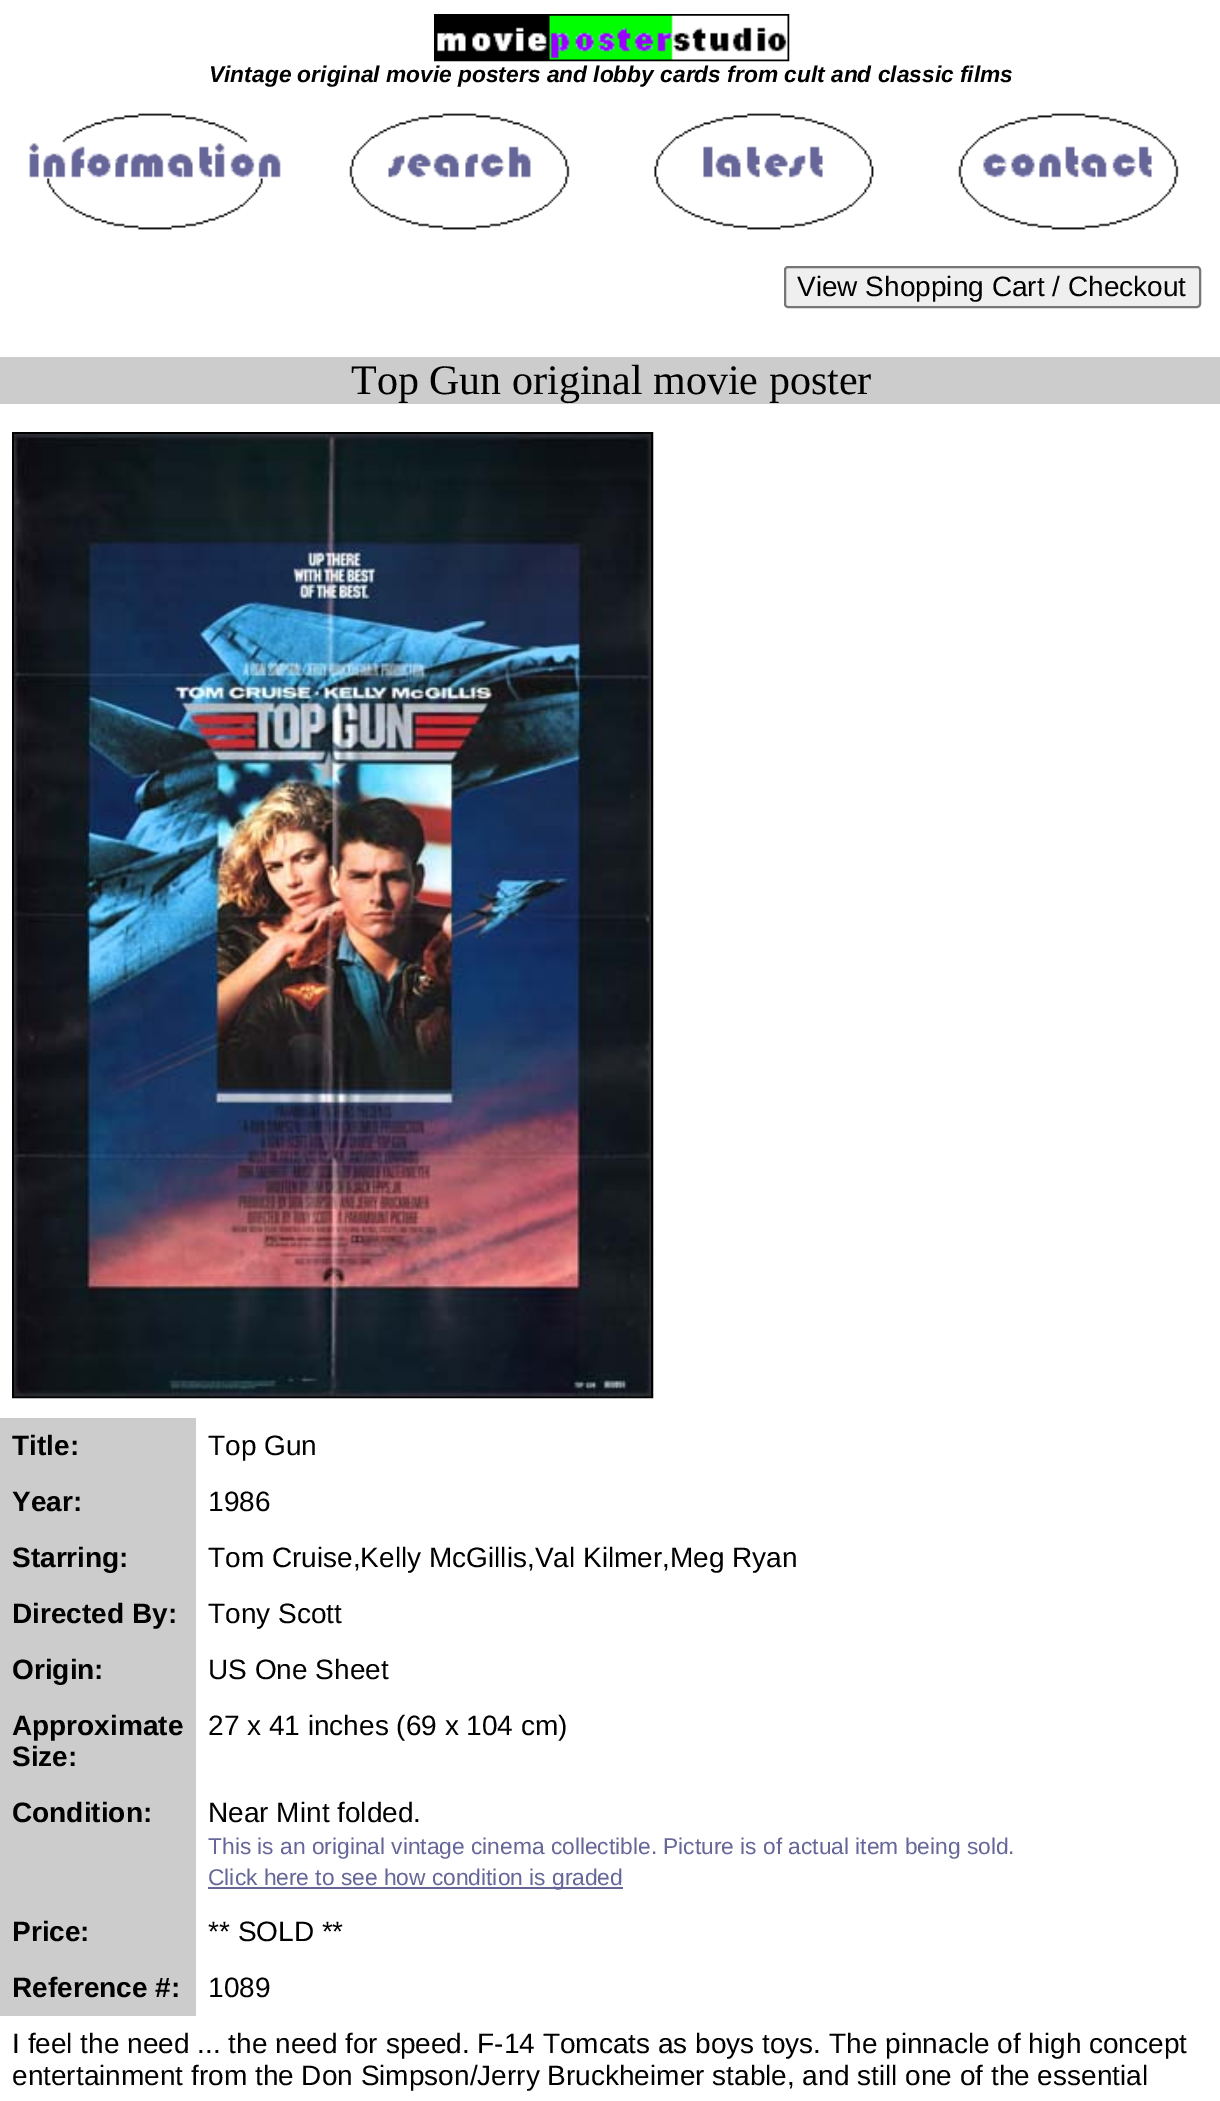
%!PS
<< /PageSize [1220 2101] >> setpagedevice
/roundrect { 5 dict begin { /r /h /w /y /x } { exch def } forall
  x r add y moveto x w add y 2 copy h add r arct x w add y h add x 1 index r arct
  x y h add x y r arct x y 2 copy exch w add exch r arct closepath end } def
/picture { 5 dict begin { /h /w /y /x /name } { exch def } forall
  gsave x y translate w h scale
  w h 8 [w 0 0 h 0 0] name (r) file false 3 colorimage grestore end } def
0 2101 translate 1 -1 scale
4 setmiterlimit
1 setgray
0 0 1220 2101 rectfill
0 setgray
2 setlinewidth
435 15 353 45 rectstroke
(img1.rgb) 436 15 352 45 picture
/LiberationSans-BoldItalic [22.75 0 0 -22.75 0 0] selectfont
209 82 moveto (Vintage original movie posters and lobby cards from cult and classic films) show
(img2.rgb) 29 113 252 117 picture
(img3.rgb) 349 113 221 117 picture
(img4.rgb) 654 113 220 117 picture
(img5.rgb) 958 113 221 117 picture
0.937 setgray
785 267 415 40 3 roundrect gsave fill grestore
0.463 setgray
stroke
/LiberationSans-Regular [28 0 0 -28 0 0] selectfont
0 setgray
797 296 moveto (View Shopping Cart / Checkout) show
0.8 setgray
0 357 1220 47 rectfill
/LiberationSerif-Regular [42 0 0 -42 0 0] selectfont
0 setgray
351 394 moveto (Top Gun original movie poster) show
13 433 639 964 rectstroke
(img6.rgb) 14 434 637 963 picture
0.8 setgray
0 1418 196 598 rectfill
/LiberationSans-Bold [28 0 0 -28 0 0] selectfont
0 setgray
12 1455 moveto (Title:) show
/LiberationSans-Regular [28 0 0 -28 0 0] selectfont
208 1455 moveto (Top Gun) show
/LiberationSans-Bold [28 0 0 -28 0 0] selectfont
12 1511 moveto (Year:) show
/LiberationSans-Regular [28 0 0 -28 0 0] selectfont
208 1511 moveto (1986) show
/LiberationSans-Bold [28 0 0 -28 0 0] selectfont
12 1567 moveto (Starring:) show
/LiberationSans-Regular [28 0 0 -28 0 0] selectfont
208 1567 moveto (Tom Cruise,Kelly McGillis,Val Kilmer,Meg Ryan) show
/LiberationSans-Bold [28 0 0 -28 0 0] selectfont
12 1623 moveto (Directed By:) show
/LiberationSans-Regular [28 0 0 -28 0 0] selectfont
208 1623 moveto (Tony Scott) show
/LiberationSans-Bold [28 0 0 -28 0 0] selectfont
12 1679 moveto (Origin:) show
/LiberationSans-Regular [28 0 0 -28 0 0] selectfont
208 1679 moveto (US One Sheet) show
/LiberationSans-Bold [28 0 0 -28 0 0] selectfont
12 1735 moveto (Approximate) show
12 1766 moveto (Size:) show
/LiberationSans-Regular [28 0 0 -28 0 0] selectfont
208 1735 moveto (27 x 41 inches \(69 x 104 cm\)) show
/LiberationSans-Bold [28 0 0 -28 0 0] selectfont
12 1822 moveto (Condition:) show
/LiberationSans-Regular [28 0 0 -28 0 0] selectfont
208 1822 moveto (Near Mint folded.) show
/LiberationSans-Regular [22.75 0 0 -22.75 0 0] selectfont
0.4 0.4 0.6 setrgbcolor
208 1854 moveto (This is an original vintage cinema collectible. Picture is of actual item being sold.) show
208 1887 415 2 rectfill
208 1885 moveto (Click here to see how condition is graded) show
/LiberationSans-Bold [28 0 0 -28 0 0] selectfont
0 setgray
12 1941 moveto (Price:) show
/LiberationSans-Regular [28 0 0 -28 0 0] selectfont
208 1941 moveto (** SOLD **) show
/LiberationSans-Bold [28 0 0 -28 0 0] selectfont
12 1997 moveto (Reference #:) show
/LiberationSans-Regular [28 0 0 -28 0 0] selectfont
208 1997 moveto (1089) show
12 2053 moveto (I feel the need ... the need for speed. F-14 Tomcats as boys toys. The pinnacle of high concept) show
12 2085 moveto (entertainment from the Don Simpson/Jerry Bruckheimer stable, and still one of the essential) show
showpage
